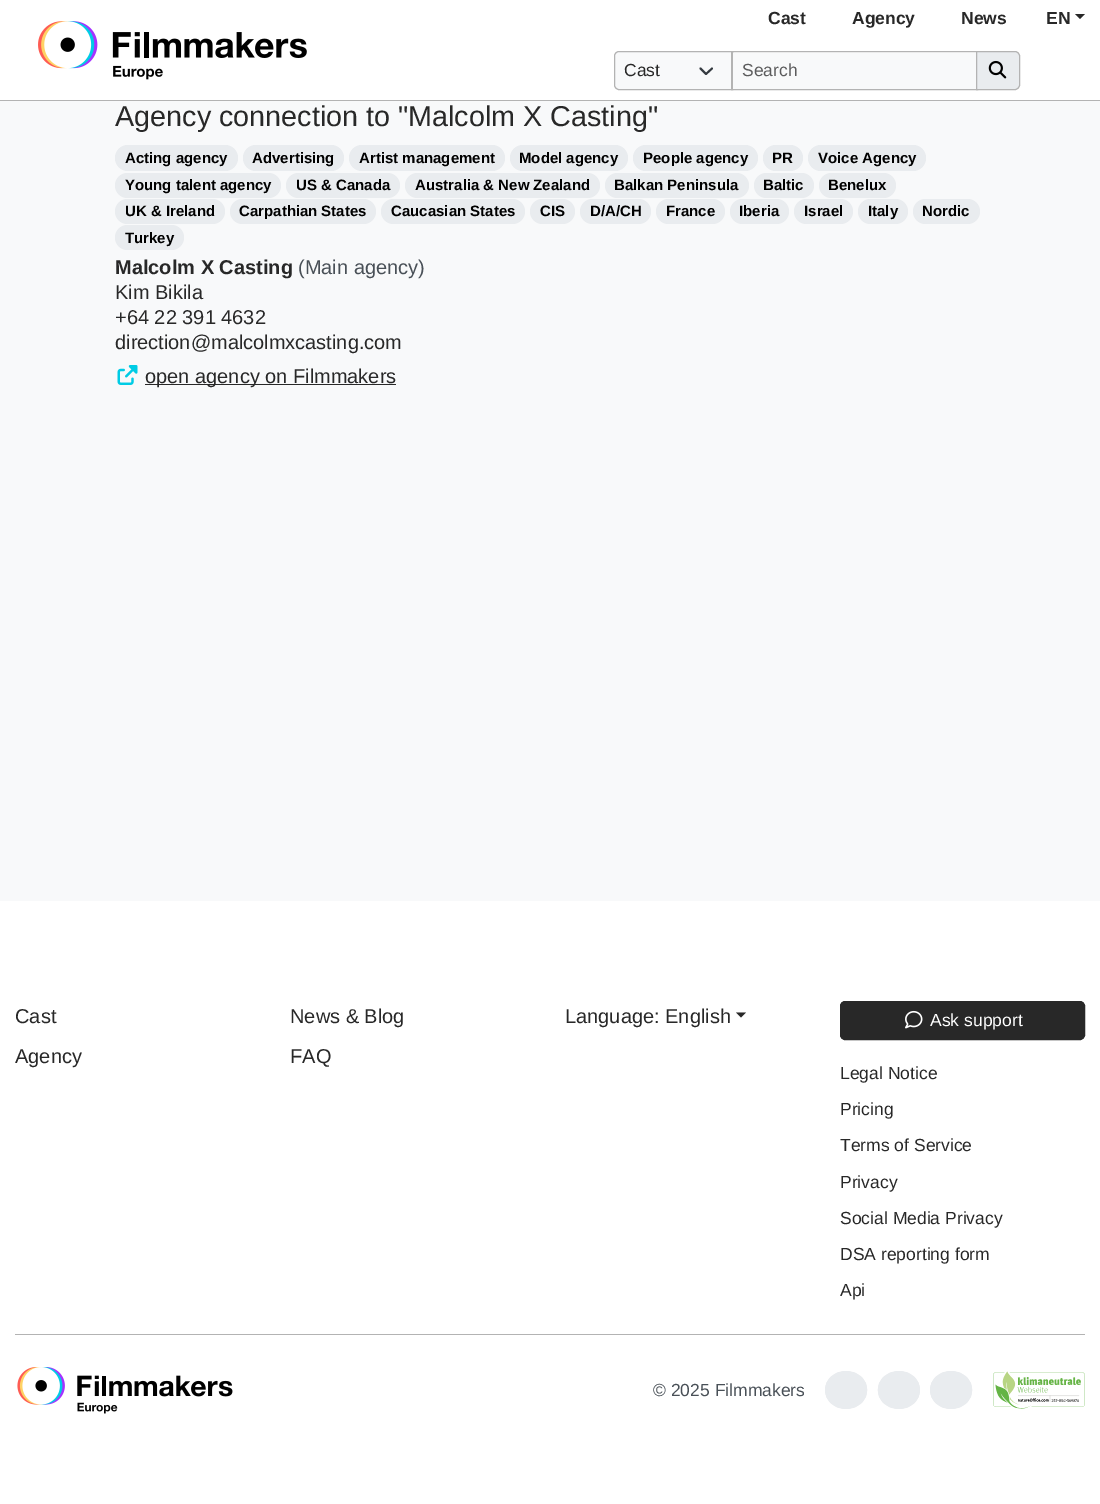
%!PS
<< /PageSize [1100 1504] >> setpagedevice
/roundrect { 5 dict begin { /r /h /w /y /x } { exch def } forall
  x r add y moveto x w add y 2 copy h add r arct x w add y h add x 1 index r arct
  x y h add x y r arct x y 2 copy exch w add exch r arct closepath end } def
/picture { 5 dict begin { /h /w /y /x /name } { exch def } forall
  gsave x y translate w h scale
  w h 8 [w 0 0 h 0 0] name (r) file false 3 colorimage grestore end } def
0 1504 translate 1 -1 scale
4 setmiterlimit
0.973 0.976 0.98 setrgbcolor
0 0 1100 1504 rectfill
1 setgray
0 0 1100 100 rectfill
0.702 setgray
0 100 1100 1 rectfill
(img1.rgb) 38 21 269 59 picture
/LiberationSans-Bold [17.5 0 0 -17.5 0 0] selectfont
0.157 setgray
768 24 moveto (Cast) show
852 24 moveto (Agency) show
961 24 moveto (News) show
1046 24 moveto (EN) show
newpath 1075 14 moveto 1085 14 lineto 1080 19 lineto closepath fill
0.973 0.976 0.98 setrgbcolor
newpath 619 51 moveto 733 51 lineto 733 90 lineto 619 90 lineto 616 90 614 88 614 85 curveto 614 56 lineto 614 53 616 51 619 51 curveto closepath fill
0.204 0.227 0.251 setrgbcolor
1.9 setlinewidth
1 setlinecap
1 setlinejoin
newpath 700.5 68.5 moveto 706 74 lineto 712 68.5 lineto stroke
0.702 setgray
1 setlinewidth
0 setlinecap
0 setlinejoin
newpath 619 51.5 moveto 732.5 51.5 lineto 732.5 89.5 lineto 619 89.5 lineto 616.5 89.5 614.5 87.5 614.5 85 curveto 614.5 56 lineto 614.5 53.5 616.5 51.5 619 51.5 curveto closepath stroke
/LiberationSans-Regular [17.5 0 0 -17.5 0 0] selectfont
0.157 setgray
624 76 moveto (Cast) show
0.973 0.976 0.98 setrgbcolor
733 53 243 36 rectfill
0.702 setgray
731.5 51.5 246 38 rectstroke
0.361 0.361 0.365 setrgbcolor
742 76 moveto (Search) show
0.914 0.925 0.937 setrgbcolor
newpath 976.5 51.5 moveto 1015 51.5 lineto 1017.5 51.5 1019.5 53.5 1019.5 56 curveto 1019.5 85 lineto 1019.5 87.5 1017.5 89.5 1015 89.5 curveto 976.5 89.5 lineto closepath gsave fill grestore
0.702 setgray
stroke
(img2.rgb) 988 60 19 19 picture
/LiberationSans-Regular [28.75 0 0 -28.75 0 0] selectfont
0.157 setgray
115 126 moveto (Agency connection to "Malcolm X Casting") show
0.914 0.925 0.937 setrgbcolor
115 145 123 26 13 roundrect fill
/LiberationSans-Bold [15 0 0 -15 0 0] selectfont
0 setgray
125 163 moveto (Acting agency) show
0.914 0.925 0.937 setrgbcolor
243 145 101 26 13 roundrect fill
0 setgray
252 163 moveto (Advertising) show
0.914 0.925 0.937 setrgbcolor
349 145 156 26 13 roundrect fill
0 setgray
359 163 moveto (Artist management) show
0.914 0.925 0.937 setrgbcolor
510 145 118 26 13 roundrect fill
0 setgray
519 163 moveto (Model agency) show
0.914 0.925 0.937 setrgbcolor
633 145 125 26 13 roundrect fill
0 setgray
643 163 moveto (People agency) show
0.914 0.925 0.937 setrgbcolor
763 145 40 26 13 roundrect fill
0 setgray
772 163 moveto (PR) show
0.914 0.925 0.937 setrgbcolor
808 145 118 26 13 roundrect fill
0 setgray
818 163 moveto (Voice Agency) show
0.914 0.925 0.937 setrgbcolor
115 173 166 25 12.5 roundrect fill
0 setgray
125 190 moveto (Young talent agency) show
0.914 0.925 0.937 setrgbcolor
286 173 114 25 12.5 roundrect fill
0 setgray
296 190 moveto (US & Canada) show
0.914 0.925 0.937 setrgbcolor
405 173 195 25 12.5 roundrect fill
0 setgray
415 190 moveto (Australia & New Zealand) show
0.914 0.925 0.937 setrgbcolor
605 173 144 25 12.5 roundrect fill
0 setgray
614 190 moveto (Balkan Peninsula) show
0.914 0.925 0.937 setrgbcolor
754 173 60 25 12.5 roundrect fill
0 setgray
763 190 moveto (Baltic) show
0.914 0.925 0.937 setrgbcolor
819 173 77 25 12.5 roundrect fill
0 setgray
828 190 moveto (Benelux) show
0.914 0.925 0.937 setrgbcolor
115 199 110 25 12.5 roundrect fill
0 setgray
125 216 moveto (UK & Ireland) show
0.914 0.925 0.937 setrgbcolor
230 199 146 25 12.5 roundrect fill
0 setgray
239 216 moveto (Carpathian States) show
0.914 0.925 0.937 setrgbcolor
381 199 144 25 12.5 roundrect fill
0 setgray
391 216 moveto (Caucasian States) show
0.914 0.925 0.937 setrgbcolor
530 199 45 25 12.5 roundrect fill
0 setgray
540 216 moveto (CIS) show
0.914 0.925 0.937 setrgbcolor
580 199 71 25 12.5 roundrect fill
0 setgray
590 216 moveto (D/A/CH) show
0.914 0.925 0.937 setrgbcolor
656 199 69 25 12.5 roundrect fill
0 setgray
666 216 moveto (France) show
0.914 0.925 0.937 setrgbcolor
730 199 59 25 12.5 roundrect fill
0 setgray
739 216 moveto (Iberia) show
0.914 0.925 0.937 setrgbcolor
794 199 59 25 12.5 roundrect fill
0 setgray
804 216 moveto (Israel) show
0.914 0.925 0.937 setrgbcolor
858 199 50 25 12.5 roundrect fill
0 setgray
868 216 moveto (Italy) show
0.914 0.925 0.937 setrgbcolor
913 199 67 25 12.5 roundrect fill
0 setgray
922 216 moveto (Nordic) show
0.914 0.925 0.937 setrgbcolor
115 225 69 25 12.5 roundrect fill
0 setgray
125 243 moveto (Turkey) show
/LiberationSans-Bold [20 0 0 -20 0 0] selectfont
0.157 setgray
115 274 moveto (Malcolm X Casting) show
/LiberationSans-Regular [20 0 0 -20 0 0] selectfont
0.286 0.314 0.341 setrgbcolor
298 274 moveto (\(Main agency\)) show
0.157 setgray
115 299 moveto (Kim Bikila) show
115 324 moveto (+64 22 391 4632) show
115 349 moveto (direction@malcolmxcasting.com) show
(img3.rgb) 117 365 21 20 picture
145 384 251 1 rectfill
145 383 moveto (open agency on Filmmakers) show
1 setgray
0 901 1100 603 rectfill
0.157 setgray
15 1023 moveto (Cast) show
15 1063 moveto (Agency) show
290 1023 moveto (News & Blog) show
290 1063 moveto (FAQ) show
565 1023 moveto (Language: English) show
newpath 736 1012.5 moveto 746 1012.5 lineto 741 1017.5 lineto closepath fill
840.5 1001.5 244 38 4.5 roundrect gsave fill grestore
stroke
(img4.rgb) 905 1010 18 19 picture
/LiberationSans-Regular [17.5 0 0 -17.5 0 0] selectfont
1 setgray
930 1026 moveto (Ask support) show
0.157 setgray
840 1079 moveto (Legal Notice) show
840 1115 moveto (Pricing) show
840 1151 moveto (Terms of Service) show
840 1188 moveto (Privacy) show
840 1224 moveto (Social Media Privacy) show
840 1260 moveto (DSA reporting form) show
840 1296 moveto (Api) show
0.702 setgray
15 1334 1070 1 rectfill
(img5.rgb) 17 1367 216 47 picture
0.286 0.314 0.341 setrgbcolor
653 1396 moveto (© 2025 Filmmakers) show
0.914 0.925 0.937 setrgbcolor
newpath 846 1371 moveto 857.5 1371 867 1379.5 867 1390 curveto 867 1400.5 857.5 1409 846 1409 curveto 834.5 1409 825 1400.5 825 1390 curveto 825 1379.5 834.5 1371 846 1371 curveto closepath fill
1.2 setlinewidth
newpath 846 1372 moveto 873.5 1372 873.5 1408 846 1408 curveto 819 1408 819 1372 846 1372 curveto closepath stroke
newpath 899 1371 moveto 910.5 1371 920 1379.5 920 1390 curveto 920 1400.5 910.5 1409 899 1409 curveto 887.5 1409 878 1400.5 878 1390 curveto 878 1379.5 887.5 1371 899 1371 curveto closepath fill
newpath 899 1372 moveto 926 1372 926 1408 899 1408 curveto 871.5 1408 871.5 1372 899 1372 curveto closepath stroke
newpath 951 1371 moveto 962.5 1371 972 1379.5 972 1390 curveto 972 1400.5 962.5 1409 951 1409 curveto 939.5 1409 930 1400.5 930 1390 curveto 930 1379.5 939.5 1371 951 1371 curveto closepath fill
newpath 951 1372 moveto 978.5 1372 978.5 1408 951 1408 curveto 924 1408 924 1372 951 1372 curveto closepath stroke
(img6.rgb) 993 1371 92 38 picture
showpage
